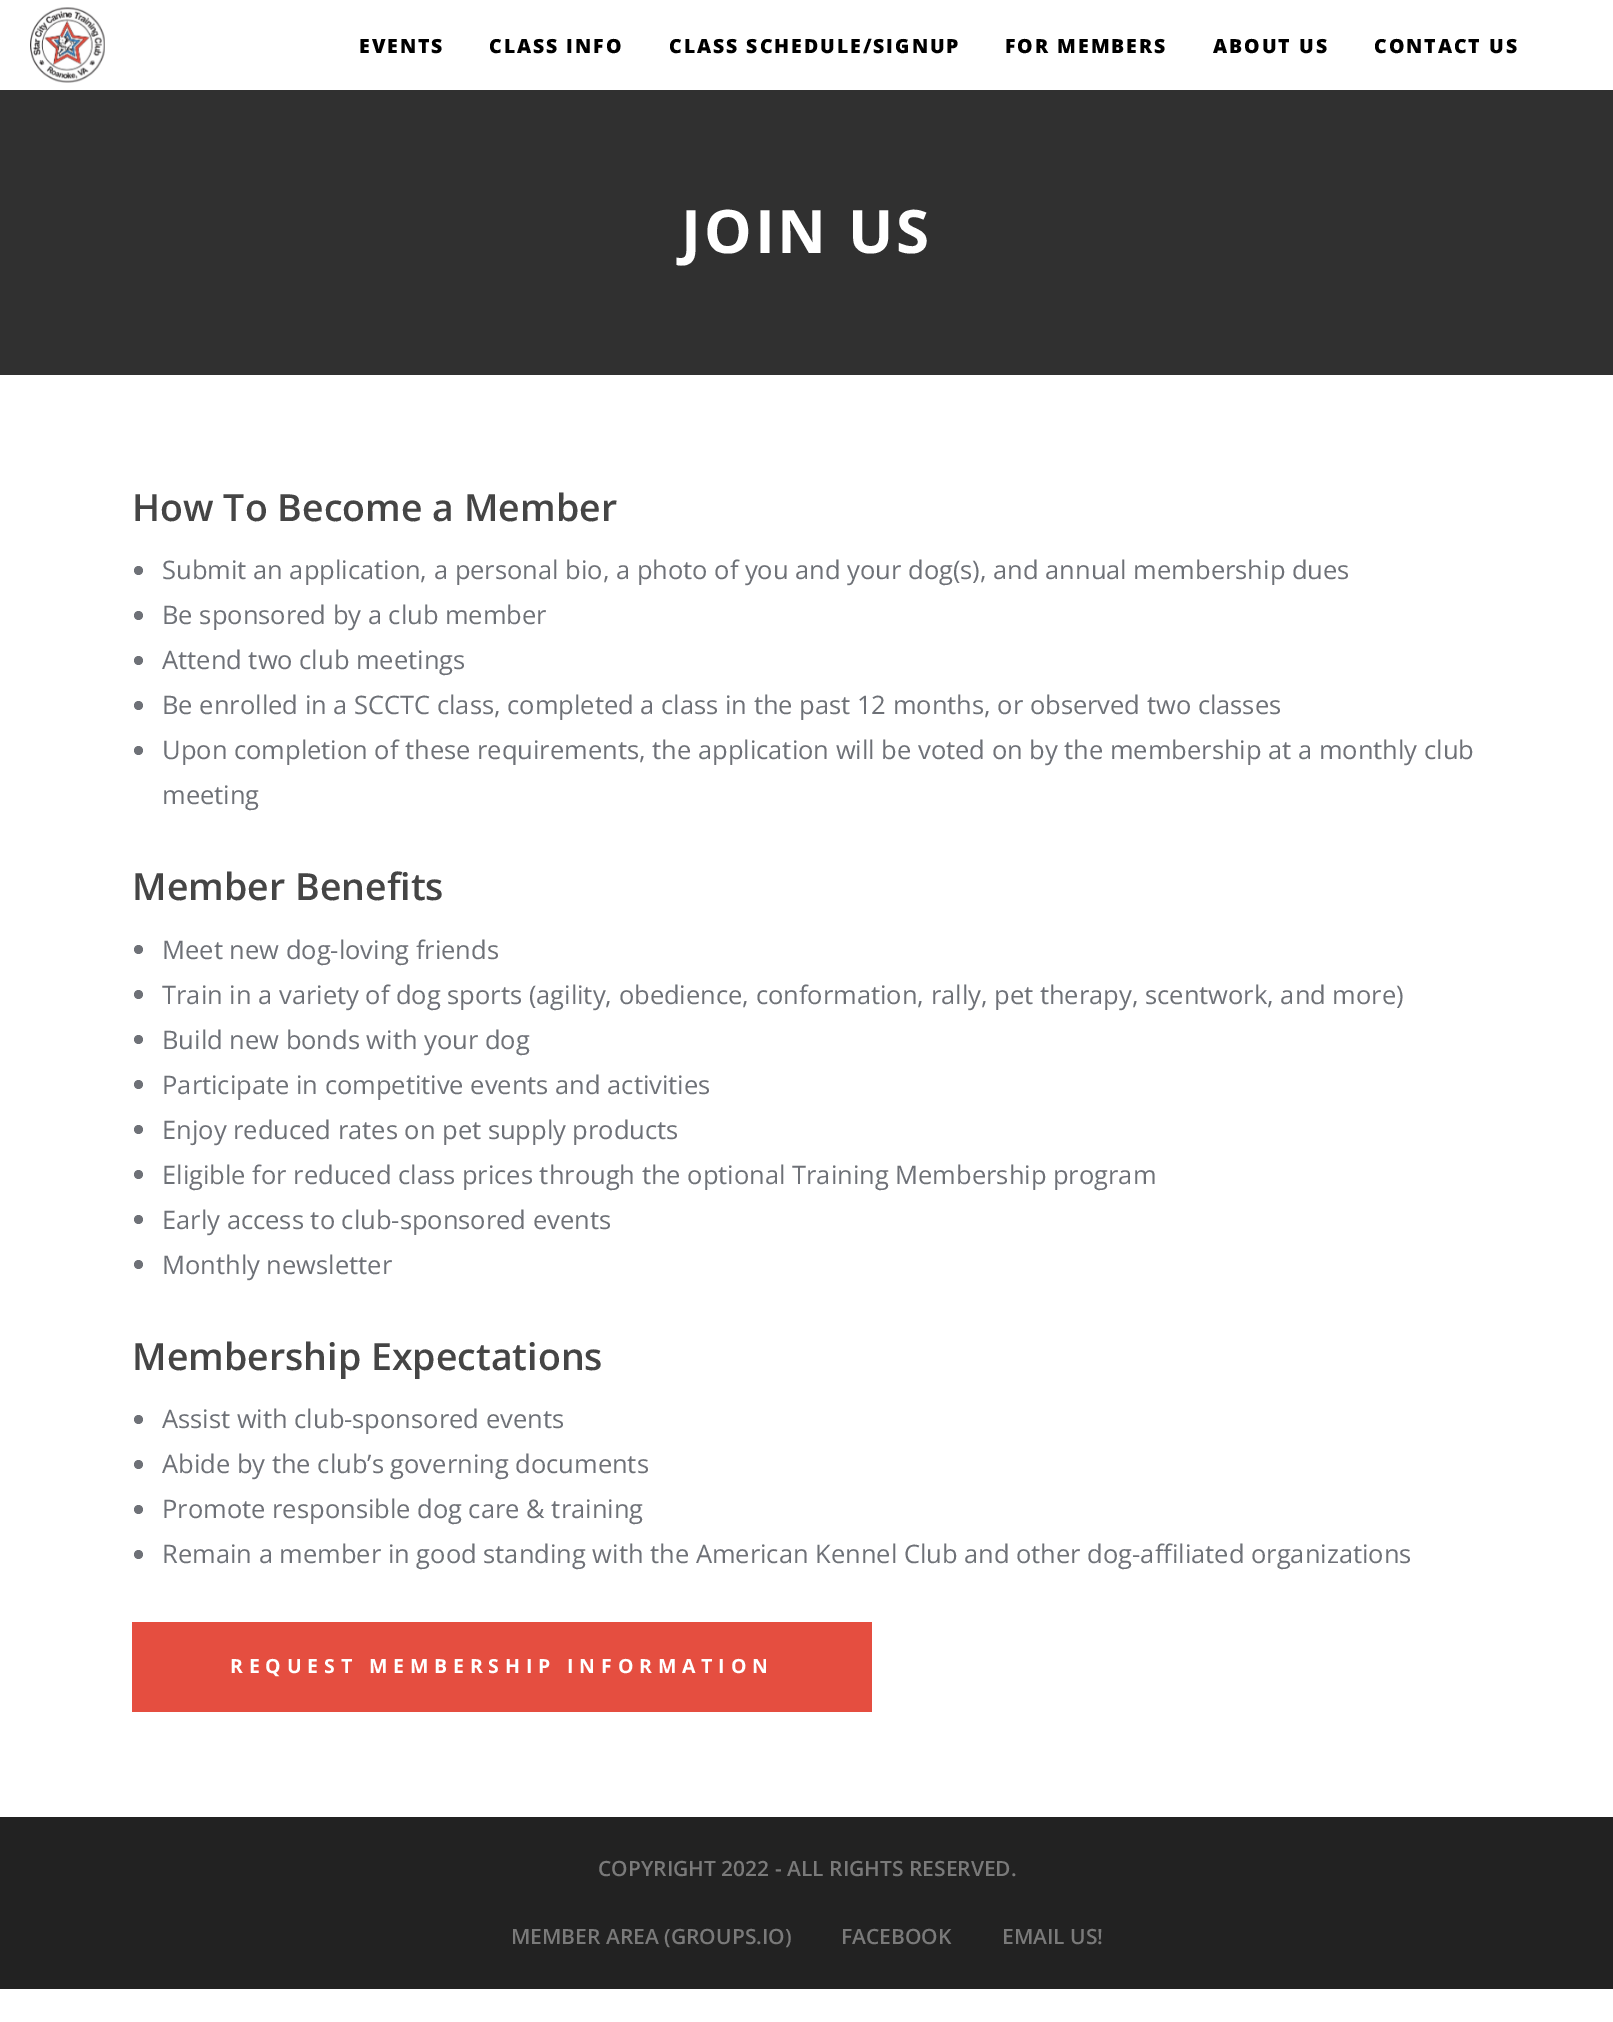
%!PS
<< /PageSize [1613 2022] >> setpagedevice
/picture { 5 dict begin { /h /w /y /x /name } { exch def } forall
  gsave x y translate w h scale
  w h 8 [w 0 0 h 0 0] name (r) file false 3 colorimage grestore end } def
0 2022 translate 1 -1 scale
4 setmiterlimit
1 setgray
0 0 1613 2022 rectfill
(img1.rgb) 30 7 75 76 picture
/OpenSans-ExtraBold [19.5 0 0 -19.5 0 0] selectfont
0 setgray
359 53 moveto 1.95 0 (EVENTS) ashow
489 53 moveto 1.95 0 (CLASS INFO) ashow
669 53 moveto 1.95 0 (CLASS SCHEDULE/SIGNUP) ashow
1005 53 moveto 1.95 0 (FOR MEMBERS) ashow
1213 53 moveto 1.95 0 (ABOUT US) ashow
1374 53 moveto 1.95 0 (CONTACT US) ashow
0.188 setgray
0 90 1613 285 rectfill
/OpenSans-Bold [60 0 0 -60 0 0] selectfont
1 setgray
681 253 moveto 3 0 (JOIN US) ashow
/OpenSans-SemiBold [37.5 0 0 -37.5 0 0] selectfont
0.271 setgray
132 521 moveto (How To Become a Member) show
0.431 0.443 0.467 setrgbcolor
newpath 138.5 570.5 4.5 0 360 arc closepath fill
/OpenSans-Regular [25.5 0 0 -25.5 0 0] selectfont
162 579 moveto (Submit an application, a personal bio, a photo of you and your dog\(s\), and annual membership dues) show
newpath 138.5 615.5 4.5 0 360 arc closepath fill
162 624 moveto (Be sponsored by a club member) show
newpath 138.5 660.5 4.5 0 360 arc closepath fill
162 669 moveto (Attend two club meetings) show
newpath 138.5 705.5 4.5 0 360 arc closepath fill
162 714 moveto (Be enrolled in a SCCTC class, completed a class in the past 12 months, or observed two classes) show
newpath 138.5 750.5 4.5 0 360 arc closepath fill
162 759 moveto (Upon completion of these requirements, the application will be voted on by the membership at a monthly club) show
162 804 moveto (meeting) show
/OpenSans-SemiBold [37.5 0 0 -37.5 0 0] selectfont
0.271 setgray
132 900 moveto (Member Benefits) show
0.431 0.443 0.467 setrgbcolor
newpath 138.5 949.5 4.5 0 360 arc closepath fill
/OpenSans-Regular [25.5 0 0 -25.5 0 0] selectfont
162 959 moveto (Meet new dog-loving friends) show
newpath 138.5 994.5 4.5 0 360 arc closepath fill
162 1004 moveto (Train in a variety of dog sports \(agility, obedience, conformation, rally, pet therapy, scentwork, and more\)) show
newpath 138.5 1039.5 4.5 0 360 arc closepath fill
162 1049 moveto (Build new bonds with your dog) show
newpath 138.5 1084.5 4.5 0 360 arc closepath fill
162 1094 moveto (Participate in competitive events and activities) show
newpath 138.5 1129.5 4.5 0 360 arc closepath fill
162 1139 moveto (Enjoy reduced rates on pet supply products) show
newpath 138.5 1174.5 4.5 0 360 arc closepath fill
162 1184 moveto (Eligible for reduced class prices through the optional Training Membership program) show
newpath 138.5 1219.5 4.5 0 360 arc closepath fill
162 1229 moveto (Early access to club-sponsored events) show
newpath 138.5 1264.5 4.5 0 360 arc closepath fill
162 1274 moveto (Monthly newsletter) show
/OpenSans-SemiBold [37.5 0 0 -37.5 0 0] selectfont
0.271 setgray
132 1370 moveto (Membership Expectations) show
0.431 0.443 0.467 setrgbcolor
newpath 138.5 1419.5 4.5 0 360 arc closepath fill
/OpenSans-Regular [25.5 0 0 -25.5 0 0] selectfont
162 1428 moveto (Assist with club-sponsored events) show
newpath 138.5 1464.5 4.5 0 360 arc closepath fill
162 1473 moveto (Abide by the club’s governing documents) show
newpath 138.5 1509.5 4.5 0 360 arc closepath fill
162 1518 moveto (Promote responsible dog care & training) show
newpath 138.5 1554.5 4.5 0 360 arc closepath fill
162 1563 moveto (Remain a member in good standing with the American Kennel Club and other dog-affiliated organizations) show
0.898 0.306 0.251 setrgbcolor
132 1622 740 90 rectfill
/OpenSans-Bold [19.5 0 0 -19.5 0 0] selectfont
1 setgray
230 1673 moveto 5.85 0 (REQUEST MEMBERSHIP INFORMATION) ashow
0.133 setgray
0 1817 1613 172 rectfill
/OpenSans-SemiBold [21 0 0 -21 0 0] selectfont
0.478 setgray
598 1876 moveto (COPYRIGHT 2022 - ALL RIGHTS RESERVED.) show
511 1944 moveto (MEMBER AREA \(GROUPS.IO\)) show
841 1944 moveto (FACEBOOK) show
1002 1944 moveto (EMAIL US!) show
showpage
